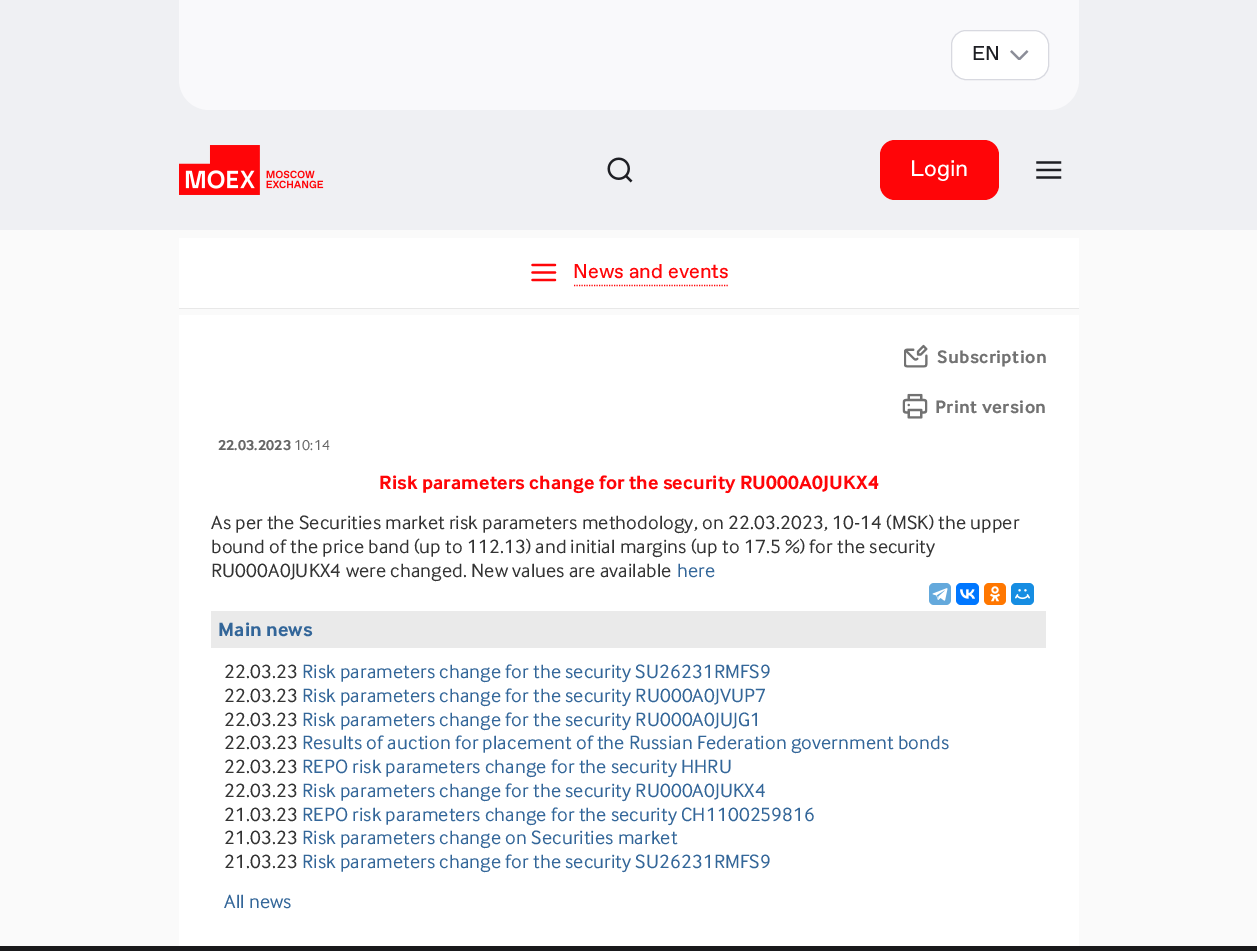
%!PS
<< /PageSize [1257 951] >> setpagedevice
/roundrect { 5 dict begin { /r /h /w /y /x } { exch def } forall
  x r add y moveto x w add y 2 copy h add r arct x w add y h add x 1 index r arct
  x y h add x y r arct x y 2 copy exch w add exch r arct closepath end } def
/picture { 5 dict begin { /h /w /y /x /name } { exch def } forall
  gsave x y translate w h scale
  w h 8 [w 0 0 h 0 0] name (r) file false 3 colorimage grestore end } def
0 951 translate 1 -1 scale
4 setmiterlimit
0.98 setgray
0 0 1257 951 rectfill
0.937 0.941 0.953 setrgbcolor
0 0 1257 230 rectfill
0.976 0.976 0.984 setrgbcolor
newpath 179 0 moveto 1079 0 lineto 1079 80 lineto 1079 96.5 1065.5 110 1049 110 curveto 209 110 lineto 192.5 110 179 96.5 179 80 curveto closepath fill
1 setgray
951.5 30.5 97 49 14.5 roundrect gsave fill grestore
0.847 0.851 0.878 setrgbcolor
stroke
/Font-Regular [20 0 0 -20 0 0] selectfont
0.118 0.122 0.141 setrgbcolor
972 60 moveto 0.15 0 (EN) ashow
(img1.rgb) 1010 50 19 10 picture
(img2.rgb) 179 145 145 50 picture
(img3.rgb) 607 157 26 26 picture
1 0.02 0.031 setrgbcolor
880 140 119 60 15 roundrect fill
/Font-Regular [22.5 0 0 -22.5 0 0] selectfont
1 setgray
910 176 moveto (Login) show
(img4.rgb) 1036 161 26 18 picture
179 238 900 70 rectfill
0.91 setgray
179 308 900 1 rectfill
(img5.rgb) 531 263 26 19 picture
/Font-Regular [20 0 0 -20 0 0] selectfont
1 0.02 0.031 setrgbcolor
573 278 moveto (News and events) show
1.2 setlinewidth
[1.25 1.25] 0 setdash
newpath 574 285.5 moveto 729 285.5 lineto stroke
1 setgray
179 315 900 631 rectfill
(img6.rgb) 904 344 24 24 picture
/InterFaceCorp-Bold [18.75 0 0 -18.75 0 0] selectfont
0.447 setgray
937 363 moveto 0.4 0 (Subscription) ashow
(img7.rgb) 902 393 26 26 picture
935 413 moveto 0.4 0 (Print version) ashow
/InterFaceCorp-Bold [15 0 0 -15 0 0] selectfont
0.4 setgray
218 450 moveto 0.15 0 (22.03.2023) ashow
/InterFaceCorp-Regular [15 0 0 -15 0 0] selectfont
294 450 moveto 0.15 0 (10:14) ashow
/InterFaceCorp-Bold [20 0 0 -20 0 0] selectfont
1 0.02 0.031 setrgbcolor
379 489 moveto 0.15 0 (Risk parameters change for the security RU000A0JUKX4) ashow
/InterFaceCorp-Regular [20 0 0 -20 0 0] selectfont
0.2 setgray
211 529 moveto 0.15 0 (As per the Securities market risk parameters methodology, on 22.03.2023, 10-14 \(MSK\) the upper) ashow
211 553 moveto 0.15 0 (bound of the price band \(up to 112.13\) and initial margins \(up to 17.5 %\) for the security) ashow
211 577 moveto 0.15 0 (RU000A0JUKX4 were changed. New values are available) ashow
0.2 0.4 0.6 setrgbcolor
677 577 moveto 0.15 0 (here) ashow
0.392 0.663 0.863 setrgbcolor
929 583 22 22 5 roundrect fill
(img8.rgb) 932 588 16 13 picture
0 0.467 1 setrgbcolor
956 583 23 22 5 roundrect fill
(img9.rgb) 960 589 15 10 picture
1 0.467 0 setrgbcolor
984 583 22 22 5 roundrect fill
(img10.rgb) 990 586 10 16 picture
0.086 0.553 0.886 setrgbcolor
1011 583 23 22 5 roundrect fill
(img11.rgb) 1015 589 15 11 picture
0.918 setgray
211 611 835 37 rectfill
/InterFaceCorp-Bold [20 0 0 -20 0 0] selectfont
0.2 0.4 0.6 setrgbcolor
218 636 moveto 0.15 0 (Main news) ashow
/InterFaceCorp-Regular [20 0 0 -20 0 0] selectfont
0.2 setgray
224 678 moveto 0.15 0 (22.03.23) ashow
0.2 0.4 0.6 setrgbcolor
302 678 moveto 0.15 0 (Risk parameters change for the security SU26231RMFS9) ashow
0.2 setgray
224 702 moveto 0.15 0 (22.03.23) ashow
0.2 0.4 0.6 setrgbcolor
302 702 moveto 0.15 0 (Risk parameters change for the security RU000A0JVUP7) ashow
0.2 setgray
224 726 moveto 0.15 0 (22.03.23) ashow
0.2 0.4 0.6 setrgbcolor
302 726 moveto 0.15 0 (Risk parameters change for the security RU000A0JUJG1) ashow
0.2 setgray
224 749 moveto 0.15 0 (22.03.23) ashow
0.2 0.4 0.6 setrgbcolor
302 749 moveto 0.15 0 (Results of auction for placement of the Russian Federation government bonds) ashow
0.2 setgray
224 773 moveto 0.15 0 (22.03.23) ashow
0.2 0.4 0.6 setrgbcolor
302 773 moveto 0.15 0 (REPO risk parameters change for the security HHRU) ashow
0.2 setgray
224 797 moveto 0.15 0 (22.03.23) ashow
0.2 0.4 0.6 setrgbcolor
302 797 moveto 0.15 0 (Risk parameters change for the security RU000A0JUKX4) ashow
0.2 setgray
224 821 moveto 0.15 0 (21.03.23) ashow
0.2 0.4 0.6 setrgbcolor
302 821 moveto 0.15 0 (REPO risk parameters change for the security CH1100259816) ashow
0.2 setgray
224 844 moveto 0.15 0 (21.03.23) ashow
0.2 0.4 0.6 setrgbcolor
302 844 moveto 0.15 0 (Risk parameters change on Securities market) ashow
0.2 setgray
224 868 moveto 0.15 0 (21.03.23) ashow
0.2 0.4 0.6 setrgbcolor
302 868 moveto 0.15 0 (Risk parameters change for the security SU26231RMFS9) ashow
224 908 moveto 0.15 0 (All news) ashow
0.098 0.098 0.106 setrgbcolor
0 946 1257 5 rectfill
showpage
